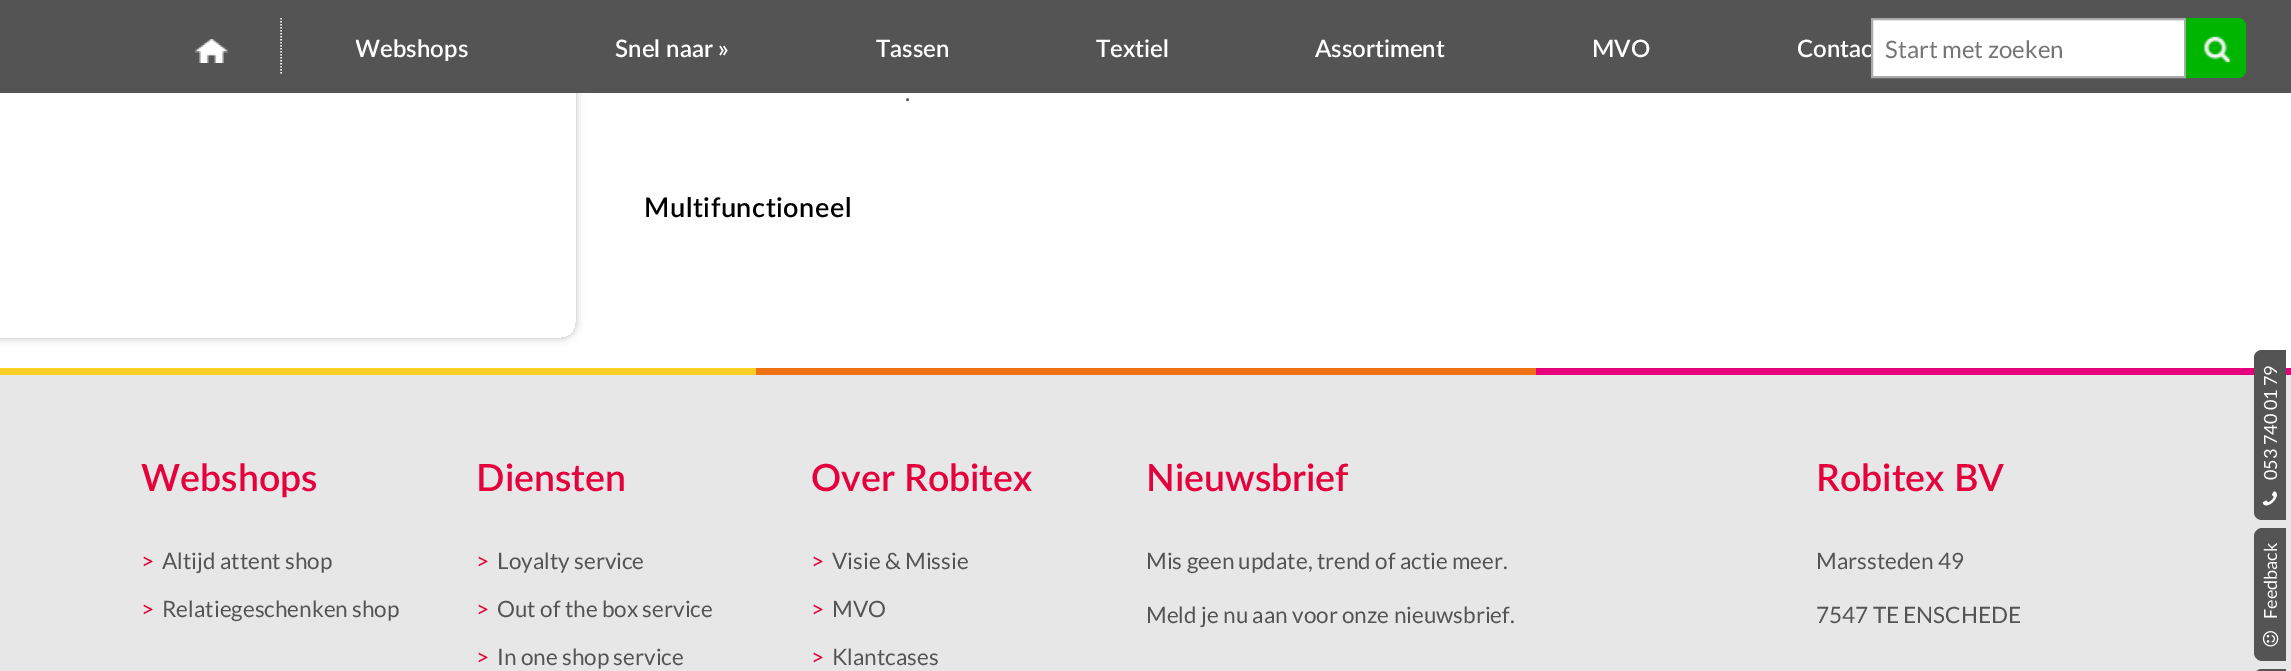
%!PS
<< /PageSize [2291 671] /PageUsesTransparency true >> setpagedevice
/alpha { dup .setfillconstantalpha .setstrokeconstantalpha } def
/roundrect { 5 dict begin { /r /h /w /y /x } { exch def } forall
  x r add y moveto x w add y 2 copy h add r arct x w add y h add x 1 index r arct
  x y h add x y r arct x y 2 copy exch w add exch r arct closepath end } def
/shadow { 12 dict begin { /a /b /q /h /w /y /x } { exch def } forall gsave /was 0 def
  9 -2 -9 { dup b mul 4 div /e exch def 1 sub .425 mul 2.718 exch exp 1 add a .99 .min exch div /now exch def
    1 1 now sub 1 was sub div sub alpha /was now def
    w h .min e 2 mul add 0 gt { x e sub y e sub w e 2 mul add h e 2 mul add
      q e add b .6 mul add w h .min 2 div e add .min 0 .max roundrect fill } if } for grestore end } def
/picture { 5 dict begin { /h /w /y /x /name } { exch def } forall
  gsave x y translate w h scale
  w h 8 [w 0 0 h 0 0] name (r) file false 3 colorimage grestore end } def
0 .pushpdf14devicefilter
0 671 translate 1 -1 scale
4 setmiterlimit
1 setgray
0 0 2291 671 rectfill
gsave
newpath 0 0 moveto 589 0 lineto 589 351 lineto 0 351 lineto closepath -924 -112 moveto 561 -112 lineto 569.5 -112 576 -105.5 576 -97 curveto 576 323 lineto 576 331.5 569.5 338 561 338 curveto -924 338 lineto closepath eoclip newpath
0 setgray
-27 -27 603 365 15 4 0.25 shadow
grestore
0.329 setgray
0 0 2291 93 rectfill
(img1.rgb) 195 39 33 24 picture
1 setgray
1.5 setlinewidth
[1.5 1.5] 0 setdash
newpath 281 18 moveto 281 75 lineto stroke
gsave
356 0 112 90 rectclip
/Lato-SemiBold [24 0 0 -24 0 0] selectfont
355 57 moveto (Webshops) show
grestore
/Lato-SemiBold [24 0 0 -24 0 0] selectfont
615 57 moveto (Snel naar ») show
876 57 moveto (Tassen) show
1096 57 moveto (Textiel) show
1315 57 moveto (Assortiment) show
1592 57 moveto (MVO) show
1797 57 moveto (Contac) show
newpath 1872 19 moveto 2185 19 lineto 2185 77 lineto 1872 77 lineto closepath gsave fill grestore
0.667 setgray
2 setlinewidth
[] 0 setdash
stroke
/Lato-Regular [24 0 0 -24 0 0] selectfont
0.459 setgray
1885 58 moveto (Start met zoeken) show
0 0.71 0 setrgbcolor
newpath 2186 18 moveto 2238 18 lineto 2242.5 18 2246 21.5 2246 26 curveto 2246 70 lineto 2246 74.5 2242.5 78 2238 78 curveto 2186 78 lineto closepath fill
(img2.rgb) 2203 36 28 27 picture
0.906 setgray
0 375 2291 296 rectfill
0.902 0 0.486 setrgbcolor
1536 368 755 7 rectfill
0.329 setgray
newpath 2254 512 moveto 2254 358 lineto 2254 353 2258 350 2262 350 curveto 2286 350 lineto 2286 520 lineto 2262 520 lineto 2258 520 2254 517 2254 512 curveto closepath fill
/Lato-Regular [18 0 0 -18 0 0] selectfont
1 setgray
gsave 2277 480 translate -90 rotate 0 0 moveto (053 740 01 79) show grestore
(img3.rgb) 2262 491 15 15 picture
0.329 setgray
newpath 2254 653 moveto 2254 536 lineto 2254 532 2258 528 2262 528 curveto 2286 528 lineto 2286 661 lineto 2262 661 lineto 2258 661 2254 657 2254 653 curveto closepath fill
1 setgray
gsave 2277 619 translate -90 rotate 0 0 moveto (Feedback) show grestore
(img4.rgb) 2262 631 17 16 picture
0.329 setgray
newpath 2254 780 moveto 2254 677 lineto 2254 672 2258 669 2262 669 curveto 2286 669 lineto 2286 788 lineto 2262 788 lineto 2258 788 2254 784 2254 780 curveto closepath fill
/Lato-Regular [24 0 0 -24 0 0] selectfont
905 101 moveto (.) show
/Lato-SemiBold [27 0 0 -27 0 0] selectfont
0 setgray
644 217 moveto 0.6 0 (Multifunctioneel) ashow
0.933 0.443 0.078 setrgbcolor
756 368 780 7 rectfill
0.992 0.812 0.133 setrgbcolor
0 368 756 7 rectfill
/Lato-SemiBold [37.5 0 0 -37.5 0 0] selectfont
0.898 0.004 0.235 setrgbcolor
141 491 moveto (Webshops) show
/Lato-Regular [22.5 0 0 -22.5 0 0] selectfont
141 569 moveto (>) show
0.329 setgray
162 569 moveto (Altijd attent shop) show
0.898 0.004 0.235 setrgbcolor
141 617 moveto (>) show
0.329 setgray
162 617 moveto (Relatiegeschenken shop) show
/Lato-SemiBold [37.5 0 0 -37.5 0 0] selectfont
0.898 0.004 0.235 setrgbcolor
476 491 moveto (Diensten) show
/Lato-Regular [22.5 0 0 -22.5 0 0] selectfont
476 569 moveto (>) show
0.329 setgray
497 569 moveto (Loyalty service) show
0.898 0.004 0.235 setrgbcolor
476 617 moveto (>) show
0.329 setgray
497 617 moveto (Out of the box service) show
0.898 0.004 0.235 setrgbcolor
476 665 moveto (>) show
0.329 setgray
497 665 moveto (In one shop service) show
/Lato-SemiBold [37.5 0 0 -37.5 0 0] selectfont
0.898 0.004 0.235 setrgbcolor
811 491 moveto (Over Robitex) show
/Lato-Regular [22.5 0 0 -22.5 0 0] selectfont
811 569 moveto (>) show
0.329 setgray
832 569 moveto (Visie & Missie) show
0.898 0.004 0.235 setrgbcolor
811 617 moveto (>) show
0.329 setgray
832 617 moveto (MVO) show
0.898 0.004 0.235 setrgbcolor
811 665 moveto (>) show
0.329 setgray
832 665 moveto (Klantcases) show
/Lato-SemiBold [37.5 0 0 -37.5 0 0] selectfont
0.898 0.004 0.235 setrgbcolor
1146 491 moveto (Nieuwsbrief) show
/Lato-Regular [22.5 0 0 -22.5 0 0] selectfont
0.329 setgray
1146 569 moveto (Mis geen update, trend of actie meer.) show
1146 623 moveto (Meld je nu aan voor onze nieuwsbrief.) show
/Lato-SemiBold [37.5 0 0 -37.5 0 0] selectfont
0.898 0.004 0.235 setrgbcolor
1816 491 moveto (Robitex BV) show
/Lato-Regular [22.5 0 0 -22.5 0 0] selectfont
0.329 setgray
1816 569 moveto (Marssteden 49) show
1816 623 moveto (7547 TE ENSCHEDE) show
.poppdf14devicefilter showpage
